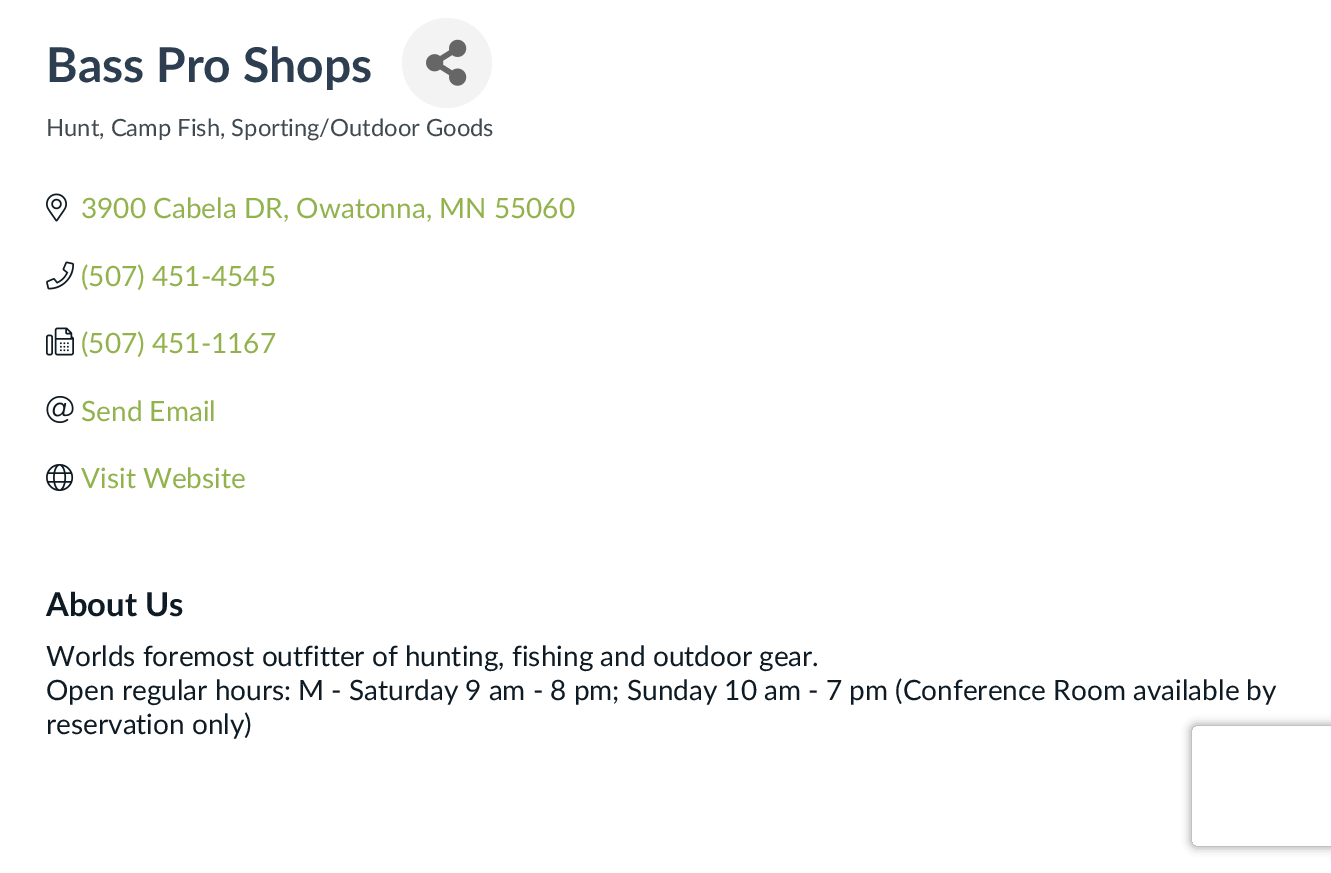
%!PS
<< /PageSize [1331 873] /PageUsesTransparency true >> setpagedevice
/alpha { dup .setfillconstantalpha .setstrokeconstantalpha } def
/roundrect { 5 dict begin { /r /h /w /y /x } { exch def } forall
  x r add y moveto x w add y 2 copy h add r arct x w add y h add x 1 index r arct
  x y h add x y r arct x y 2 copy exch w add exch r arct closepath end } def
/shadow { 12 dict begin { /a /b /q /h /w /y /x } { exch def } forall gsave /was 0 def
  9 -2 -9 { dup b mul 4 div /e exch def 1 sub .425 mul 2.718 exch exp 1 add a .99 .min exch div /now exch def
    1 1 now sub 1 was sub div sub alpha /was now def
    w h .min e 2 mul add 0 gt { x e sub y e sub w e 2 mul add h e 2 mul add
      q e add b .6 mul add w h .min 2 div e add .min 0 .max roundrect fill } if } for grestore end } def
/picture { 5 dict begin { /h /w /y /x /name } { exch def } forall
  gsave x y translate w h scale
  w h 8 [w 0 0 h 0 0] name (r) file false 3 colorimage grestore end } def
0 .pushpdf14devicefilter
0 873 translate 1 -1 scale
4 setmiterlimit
1 setgray
0 0 1331 873 rectfill
/Lato-Bold [48 0 0 -48 0 0] selectfont
0.173 0.243 0.314 setrgbcolor
46 82 moveto (Bass Pro Shops) show
0.953 setgray
newpath 447 63 45 0 360 arc closepath fill
(img1.rgb) 426 39 41 47 picture
/Lato-Regular [23.75 0 0 -23.75 0 0] selectfont
0.247 0.286 0.314 setrgbcolor
46 136 moveto (Hunt, Camp Fish, Sporting/Outdoor Goods) show
(img2.rgb) 46 193 21 29 picture
/Lato-Regular [28 0 0 -28 0 0] selectfont
0.573 0.698 0.306 setrgbcolor
81 218 moveto (3900 Cabela DR, Owatonna, MN 55060) show
(img3.rgb) 46 261 29 29 picture
81 286 moveto (\(507\) 451-4545) show
(img4.rgb) 46 327 28 29 picture
81 353 moveto (\(507\) 451-1167) show
(img5.rgb) 46 395 28 29 picture
81 421 moveto (Send Email) show
(img6.rgb) 46 463 28 29 picture
81 488 moveto (Visit Website) show
/Lato-Bold [32.75 0 0 -32.75 0 0] selectfont
0.059 0.106 0.141 setrgbcolor
46 616 moveto (About Us) show
/Lato-Regular [28 0 0 -28 0 0] selectfont
46 666 moveto (Worlds foremost outfitter of hunting, fishing and outdoor gear.) show
46 700 moveto (Open regular hours: M - Saturday 9 am - 8 pm; Sunday 10 am - 7 pm \(Conference Room available by) show
46 734 moveto (reservation only\)) show
gsave
newpath 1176 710 moveto 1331 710 lineto 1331 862 lineto 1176 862 lineto closepath 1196 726 moveto 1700 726 lineto 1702 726 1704 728 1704 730 curveto 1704 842 lineto 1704 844 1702 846 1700 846 curveto 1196 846 lineto 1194 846 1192 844 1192 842 curveto 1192 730 lineto 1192 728 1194 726 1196 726 curveto closepath eoclip newpath
0.502 setgray
1192 726 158 120 4 5 1 shadow
grestore
.poppdf14devicefilter showpage
